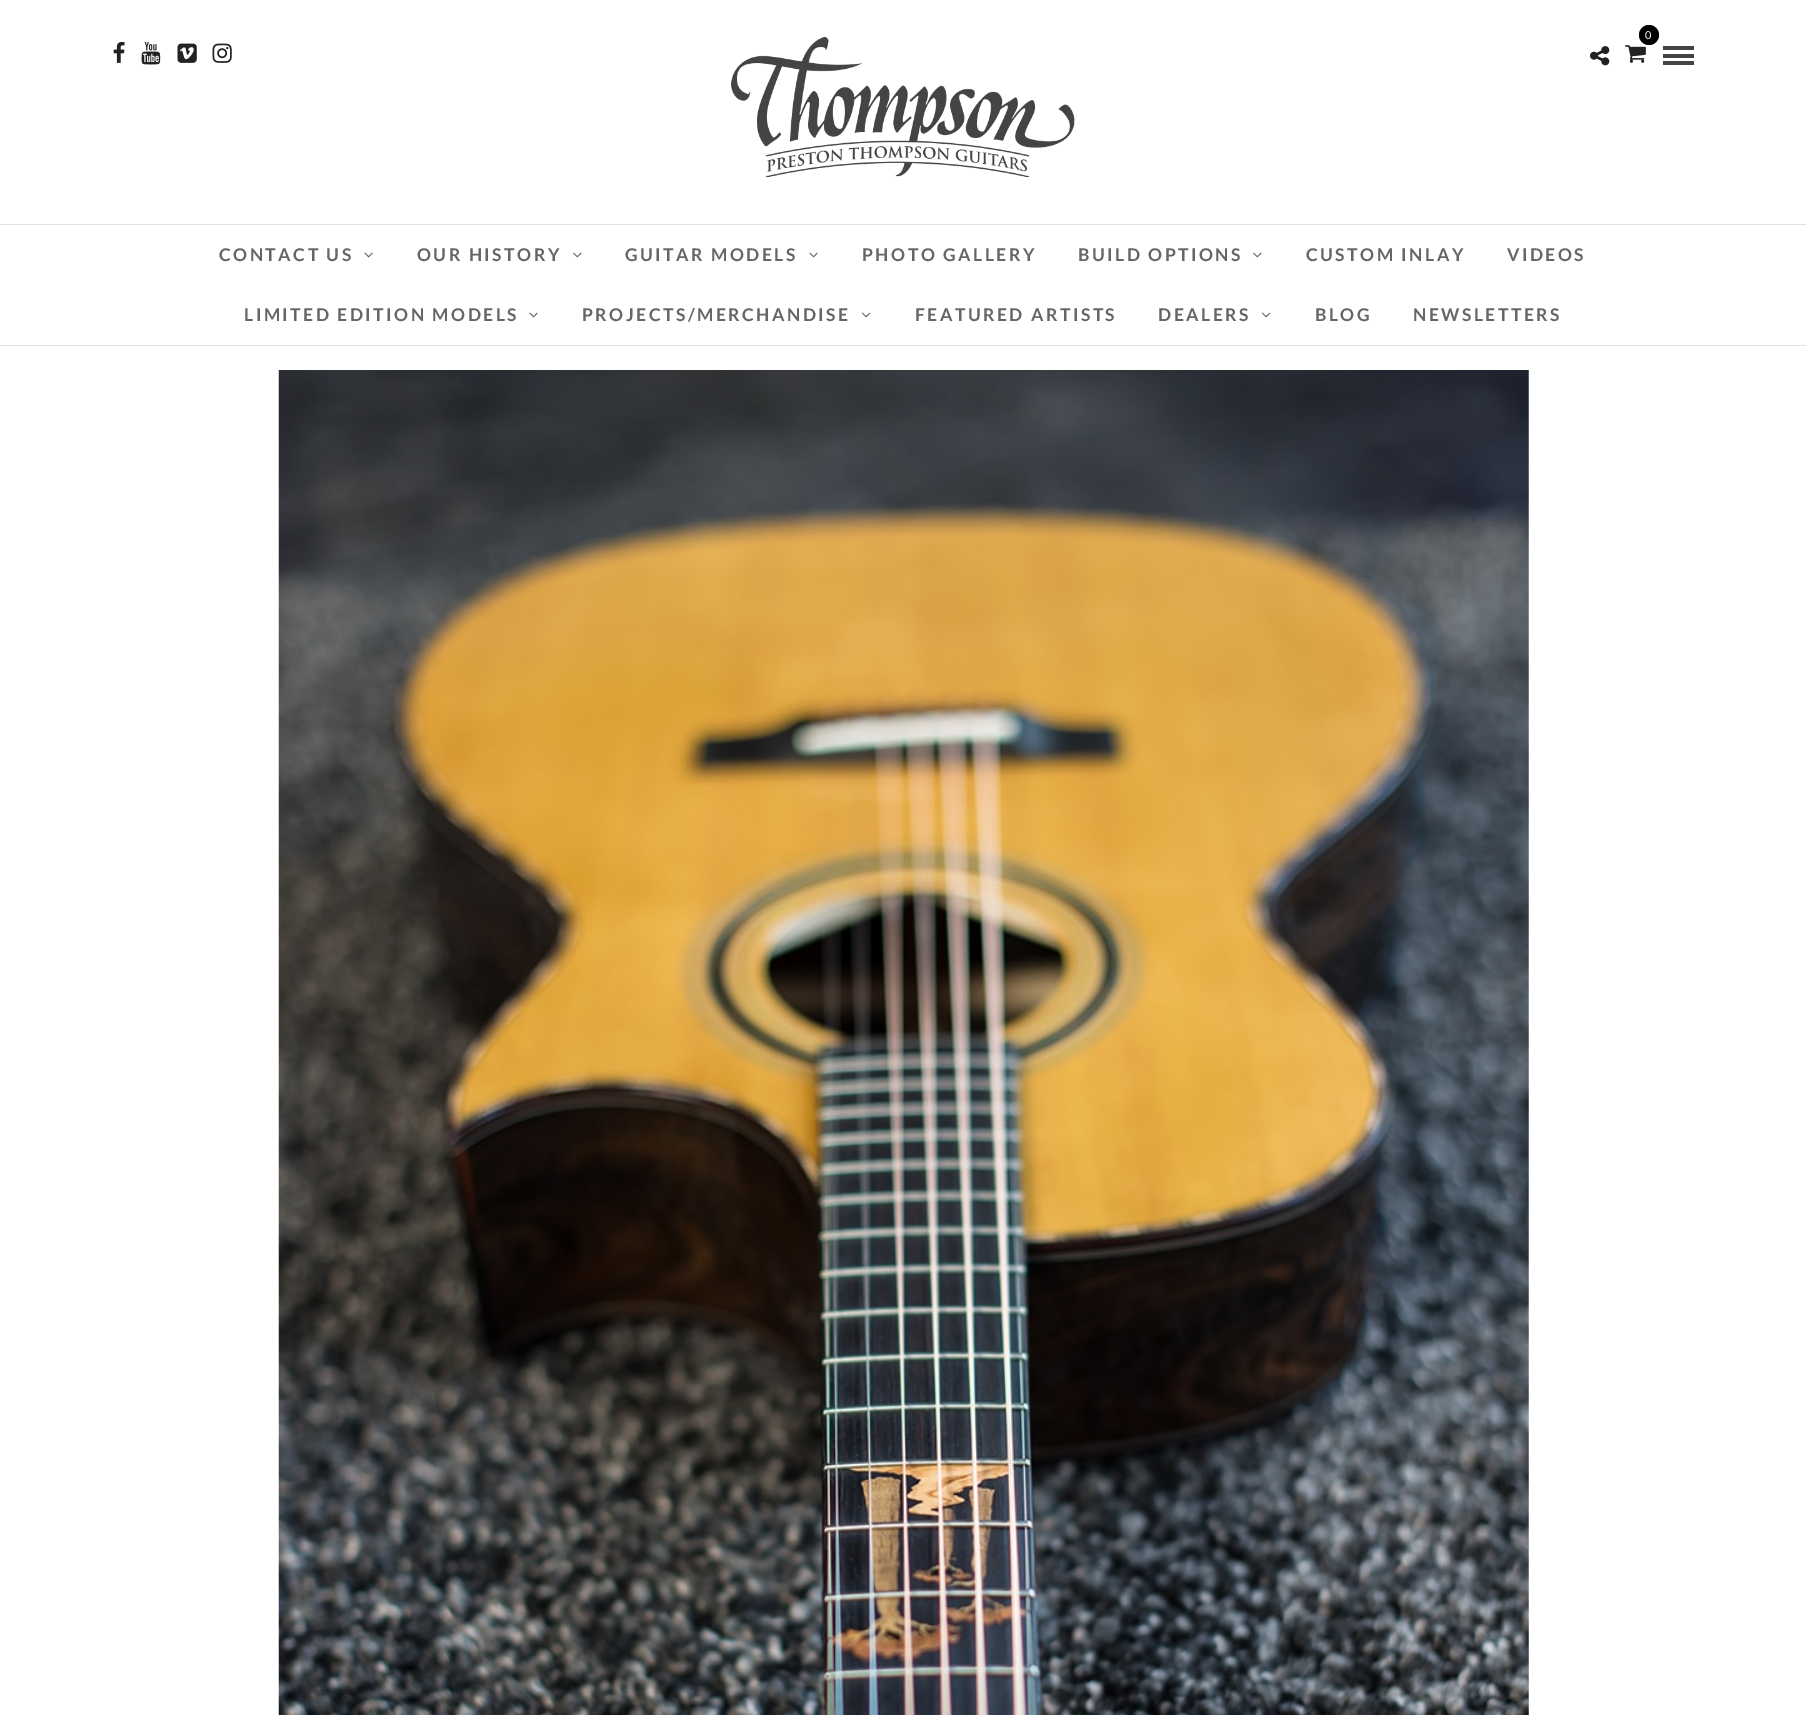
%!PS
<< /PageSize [1806 1715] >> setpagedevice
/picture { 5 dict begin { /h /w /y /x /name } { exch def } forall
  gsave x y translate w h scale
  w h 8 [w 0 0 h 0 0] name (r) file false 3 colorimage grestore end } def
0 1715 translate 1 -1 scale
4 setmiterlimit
1 setgray
0 0 1806 1715 rectfill
0.882 setgray
0 345 1806 1 rectfill
0 224 1806 1 rectfill
0 setgray
newpath 1649 35 10 0 360 arc closepath fill
/Lato-Regular [11 0 0 -11 0 0] selectfont
1 setgray
1645 39 moveto (0) show
(img1.rgb) 1625 45 21 18 picture
(img2.rgb) 1590 46 20 20 picture
0.267 setgray
1663 46 31 4 rectfill
1663 54 31 4 rectfill
1663 61 31 4 rectfill
(img3.rgb) 113 42 12 21 picture
(img4.rgb) 141 41 20 24 picture
(img5.rgb) 177 43 20 20 picture
(img6.rgb) 212 43 20 20 picture
(img7.rgb) 731 37 344 140 picture
/Lato-Bold [17.5 0 0 -17.5 0 0] selectfont
0.4 setgray
219 261 moveto 2.5 0 (CONTACT US) ashow
(img8.rgb) 364 252 9 6 picture
417 261 moveto 2.5 0 (OUR HISTORY) ashow
(img9.rgb) 573 252 9 6 picture
625 261 moveto 2.5 0 (GUITAR MODELS) ashow
(img8.rgb) 809 252 9 6 picture
862 261 moveto 2.5 0 (PHOTO GALLERY) ashow
1078 261 moveto 2.5 0 (BUILD OPTIONS) ashow
(img9.rgb) 1253 252 9 6 picture
1306 261 moveto 2.5 0 (CUSTOM INLAY) ashow
1507 261 moveto 2.5 0 (VIDEOS) ashow
244 321 moveto 2.5 0 (LIMITED EDITION MODELS) ashow
(img8.rgb) 529 312 9 6 picture
582 321 moveto 2.5 0 (PROJECTS/MERCHANDISE) ashow
(img10.rgb) 861 312 10 6 picture
915 321 moveto 2.5 0 (FEATURED ARTISTS) ashow
1158 321 moveto 2.5 0 (DEALERS) ashow
(img10.rgb) 1261 312 10 6 picture
1315 321 moveto 2.5 0 (BLOG) ashow
1413 321 moveto 2.5 0 (NEWSLETTERS) ashow
(img11.rgb) 278 370 1251 1345 picture
showpage
